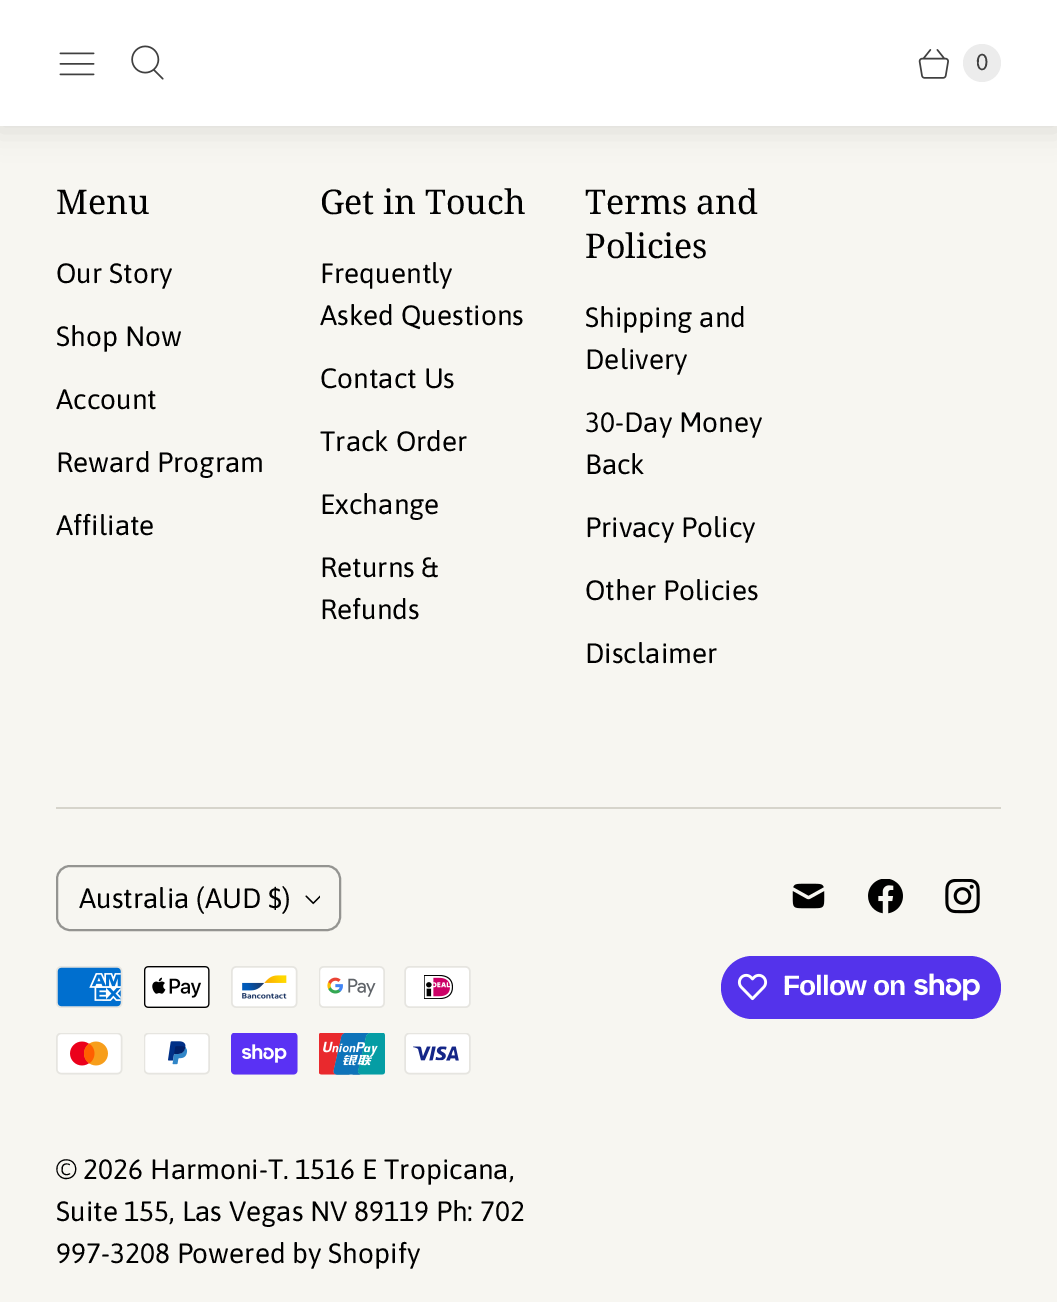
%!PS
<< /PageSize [1057 1302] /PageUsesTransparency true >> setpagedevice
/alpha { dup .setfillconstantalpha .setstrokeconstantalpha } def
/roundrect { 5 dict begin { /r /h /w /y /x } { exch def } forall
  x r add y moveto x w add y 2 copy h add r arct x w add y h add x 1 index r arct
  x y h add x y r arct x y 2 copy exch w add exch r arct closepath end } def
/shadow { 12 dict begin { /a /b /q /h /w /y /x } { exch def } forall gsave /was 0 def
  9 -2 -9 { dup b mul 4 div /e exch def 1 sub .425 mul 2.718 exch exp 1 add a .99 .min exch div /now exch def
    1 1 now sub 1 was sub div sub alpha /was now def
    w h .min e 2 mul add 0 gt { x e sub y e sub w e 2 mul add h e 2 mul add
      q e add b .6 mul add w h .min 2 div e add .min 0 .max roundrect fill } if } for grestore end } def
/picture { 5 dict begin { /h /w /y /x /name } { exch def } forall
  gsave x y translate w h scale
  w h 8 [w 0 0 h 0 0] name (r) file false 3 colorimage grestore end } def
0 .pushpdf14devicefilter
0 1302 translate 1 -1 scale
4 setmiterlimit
0.969 0.965 0.945 setrgbcolor
0 0 1057 1302 rectfill
0 setgray
-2 2 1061 129 0 14 0.1 shadow
1 setgray
0 0 1057 126 rectfill
(img1.rgb) 59 52 36 24 picture
(img2.rgb) 131 45 33 35 picture
(img3.rgb) 918 49 31 30 picture
0.925 setgray
newpath 982 63 19 0 360 arc closepath fill
/Asap-Regular [23 0 0 -23 0 0] selectfont
0.251 setgray
976 70 moveto (0) show
/NotoSerif-Regular [34 0 0 -34 0 0] selectfont
0 setgray
56 214 moveto (Menu) show
/Asap-Regular [28 0 0 -28 0 0] selectfont
56 283 moveto (Our Story) show
56 346 moveto (Shop Now) show
56 409 moveto (Account) show
56 472 moveto (Reward Program) show
56 535 moveto (Affiliate) show
/NotoSerif-Regular [34 0 0 -34 0 0] selectfont
320 214 moveto (Get in Touch) show
/Asap-Regular [28 0 0 -28 0 0] selectfont
320 283 moveto (Frequently) show
320 325 moveto (Asked Questions) show
320 388 moveto (Contact Us) show
320 451 moveto (Track Order) show
320 514 moveto (Exchange) show
320 577 moveto (Returns &) show
320 619 moveto (Refunds) show
/NotoSerif-Regular [34 0 0 -34 0 0] selectfont
585 214 moveto (Terms and) show
585 258 moveto (Policies) show
/Asap-Regular [28 0 0 -28 0 0] selectfont
585 327 moveto (Shipping and) show
585 369 moveto (Delivery) show
585 432 moveto (30-Day Money) show
585 474 moveto (Back) show
585 537 moveto (Privacy Policy) show
585 600 moveto (Other Policies) show
585 663 moveto (Disclaimer) show
0.839 0.831 0.796 setrgbcolor
56 807 945 2 rectfill
0.58 0.58 0.569 setrgbcolor
2 setlinewidth
57 866 283 64 13 roundrect stroke
0 setgray
79 908 moveto (Australia \(AUD $\)) show
(img4.rgb) 305 895 15 10 picture
(img5.rgb) 56 966 67 42 picture
(img6.rgb) 144 966 66 42 picture
(img7.rgb) 231 966 67 42 picture
(img8.rgb) 319 966 66 42 picture
(img9.rgb) 404 966 67 42 picture
(img10.rgb) 56 1033 67 42 picture
(img11.rgb) 144 1033 66 42 picture
(img12.rgb) 231 1033 67 42 picture
(img13.rgb) 319 1033 66 42 picture
(img14.rgb) 404 1033 67 42 picture
56 1179 moveto (© 2026 Harmoni-T. 1516 E Tropicana,) show
56 1221 moveto (Suite 155, Las Vegas NV 89119 Ph: 702) show
56 1263 moveto (997-3208 Powered by Shopify) show
(img15.rgb) 792 883 33 26 picture
(img16.rgb) 868 879 35 35 picture
(img17.rgb) 945 879 35 35 picture
0.329 0.2 0.922 setrgbcolor
721 956 280 63 31.5 roundrect fill
(img18.rgb) 737 973 31 28 picture
/LiberationSans-Bold [28 0 0 -28 0 0] selectfont
1 setgray
783 995 moveto -0.9 0 (Follow on) ashow
(img19.rgb) 914 973 66 28 picture
.poppdf14devicefilter showpage
